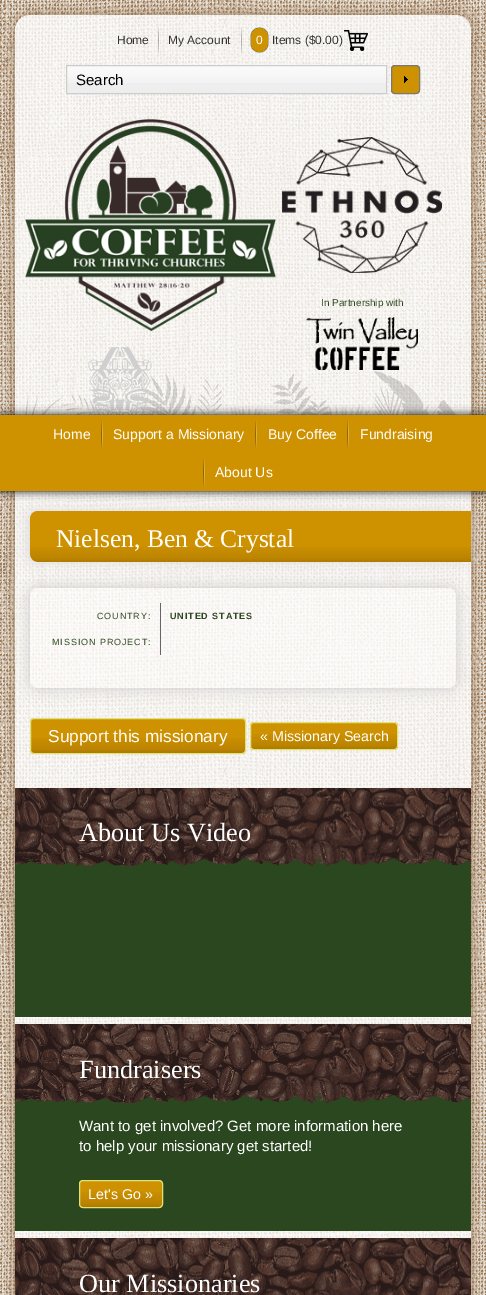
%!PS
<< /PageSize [486 1295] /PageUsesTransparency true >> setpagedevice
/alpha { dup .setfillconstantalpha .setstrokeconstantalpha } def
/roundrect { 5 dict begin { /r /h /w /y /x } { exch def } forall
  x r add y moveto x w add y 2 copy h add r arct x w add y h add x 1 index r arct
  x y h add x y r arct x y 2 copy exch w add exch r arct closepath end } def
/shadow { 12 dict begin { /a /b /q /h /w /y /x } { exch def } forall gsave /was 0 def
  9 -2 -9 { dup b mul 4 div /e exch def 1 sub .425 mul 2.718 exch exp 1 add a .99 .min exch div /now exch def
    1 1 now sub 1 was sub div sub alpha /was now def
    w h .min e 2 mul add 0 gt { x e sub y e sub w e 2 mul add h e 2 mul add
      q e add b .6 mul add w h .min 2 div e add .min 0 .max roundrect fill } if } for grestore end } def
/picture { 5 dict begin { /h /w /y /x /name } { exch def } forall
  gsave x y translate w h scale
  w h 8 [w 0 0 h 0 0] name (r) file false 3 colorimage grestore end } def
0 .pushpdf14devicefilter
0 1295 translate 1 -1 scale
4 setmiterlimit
1 setgray
0 0 486 1295 rectfill
(img1.rgb) 0 0 486 1295 picture
gsave
newpath 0 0 moveto 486 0 lineto 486 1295 lineto 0 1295 lineto closepath 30 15 moveto 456 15 lineto 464.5 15 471 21.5 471 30 curveto 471 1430 lineto 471 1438.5 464.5 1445 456 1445 curveto 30 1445 lineto 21.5 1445 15 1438.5 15 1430 curveto 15 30 lineto 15 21.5 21.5 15 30 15 curveto closepath eoclip newpath
0.612 0.494 0.373 setrgbcolor
15 15 456 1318 15 7.5 1 shadow
grestore
(img2.rgb) 15 15 456 1223 picture
(img3.rgb) 25 347 446 68 picture
/LiberationSans-Regular [12 0 0 -12 0 0] selectfont
0.2 setgray
117 44 moveto (Home) show
(img4.rgb) 158 26 2 29 picture
168 44 moveto (My Account) show
(img5.rgb) 241 26 2 29 picture
0 setgray
251 28 17 24 8.5 0.5 1 shadow
0.808 0.569 0 setrgbcolor
251 28 17 24 8.5 roundrect fill
1 setgray
256 44 moveto (0) show
0.2 setgray
272 44 moveto (Items \($0.00\)) show
(img6.rgb) 344 30 24 21 picture
0.933 setgray
67 66 319 27 rectfill
(img7.rgb) 67 66 319 17 picture
0.8 setgray
66.5 65.5 320 28 rectstroke
/LiberationSans-Regular [15 0 0 -15 0 0] selectfont
0 setgray
76 85 moveto (Search) show
0.808 0.569 0 setrgbcolor
391 65 29 29 4 roundrect fill
(img8.rgb) 404 76 4 7 picture
0.467 setgray
391.5 65.5 28 28 3.5 roundrect stroke
(img9.rgb) 25 119 251 212 picture
(img10.rgb) 282 137 160 136 picture
/LiberationSans-Regular [10 0 0 -10 0 0] selectfont
0.169 0.278 0.122 setrgbcolor
321 306 moveto (In Partnership with) show
(img11.rgb) 306 317 112 53 picture
0 setgray
0 415 486 76 0 4.5 1 shadow
0.808 0.569 0 setrgbcolor
0 415 486 76 rectfill
/LiberationSans-Regular [14 0 0 -14 0 0] selectfont
1 setgray
53 439 moveto (Home) show
(img12.rgb) 101 420 2 29 picture
113 439 moveto (Support a Missionary) show
(img12.rgb) 255 420 2 29 picture
268 439 moveto (Buy Coffee) show
(img12.rgb) 347 420 2 29 picture
360 439 moveto (Fundraising) show
(img12.rgb) 203 458 2 29 picture
215 477 moveto (About Us) show
0.867 setgray
27 511 441 51 8 6.5 1 shadow
0.808 0.569 0 setrgbcolor
newpath 38 511 moveto 471 511 lineto 471 562 lineto 38 562 lineto 33.5 562 30 558.5 30 554 curveto 30 519 lineto 30 514.5 33.5 511 38 511 curveto closepath fill
(img13.rgb) 30 547 441 15 picture
/LiberationSerif-Regular [25.5 0 0 -25.5 0 0] selectfont
1 setgray
56 547 moveto (Nielsen, Ben & Crystal) show
gsave
newpath 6 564 moveto 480 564 lineto 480 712 lineto 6 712 lineto closepath 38 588 moveto 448 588 lineto 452.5 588 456 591.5 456 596 curveto 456 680 lineto 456 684.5 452.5 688 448 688 curveto 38 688 lineto 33.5 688 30 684.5 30 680 curveto 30 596 lineto 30 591.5 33.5 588 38 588 curveto closepath eoclip newpath
0.8 setgray
30 588 426 100 8 7.5 1 shadow
grestore
(img14.rgb) 30 588 426 100 picture
/LiberationSans-Regular [9 0 0 -9 0 0] selectfont
0.169 0.278 0.122 setrgbcolor
97 619 moveto 0.9 0 (COUNTRY:) ashow
/LiberationSans-Bold [9 0 0 -9 0 0] selectfont
170 619 moveto 0.9 0 (UNITED STATES) ashow
0.4 setgray
160 603 1 52 rectfill
/LiberationSans-Regular [9 0 0 -9 0 0] selectfont
0.169 0.278 0.122 setrgbcolor
52 645 moveto 0.9 0 (MISSION PROJECT:) ashow
0.808 0.569 0 setrgbcolor
30 718 216 36 4 roundrect fill
(img15.rgb) 30 738 216 15 picture
0.871 0.886 0.475 setrgbcolor
30.5 718.5 215 35 3.5 roundrect stroke
/LiberationSans-Regular [17.25 0 0 -17.25 0 0] selectfont
1 setgray
48 742 moveto (Support this missionary) show
0.808 0.569 0 setrgbcolor
250 722 148 28 4 roundrect fill
(img16.rgb) 250 734 148 15 picture
0.871 0.886 0.475 setrgbcolor
250.5 722.5 147 27 3.5 roundrect stroke
/LiberationSans-Regular [14.25 0 0 -14.25 0 0] selectfont
1 setgray
260 741 moveto (« Missionary Search) show
0.169 0.278 0.122 setrgbcolor
15 859 456 158 rectfill
(img17.rgb) 15 788 456 78 picture
/LiberationSerif-Regular [26.25 0 0 -26.25 0 0] selectfont
1 setgray
79 841 moveto (About Us Video) show
0.169 0.278 0.122 setrgbcolor
15 1096 456 135 rectfill
(img18.rgb) 15 1024 456 79 picture
1 setgray
79 1078 moveto (Fundraisers) show
/LiberationSans-Regular [15 0 0 -15 0 0] selectfont
79 1131 moveto (Want to get involved? Get more information here) show
79 1151 moveto (to help your missionary get started!) show
0.808 0.569 0 setrgbcolor
79 1180 84 28 4 roundrect fill
(img19.rgb) 79 1192 84 15 picture
0.871 0.886 0.475 setrgbcolor
79.5 1180.5 83 27 3.5 roundrect stroke
/LiberationSans-Regular [14.25 0 0 -14.25 0 0] selectfont
1 setgray
88 1199 moveto (Let's Go ») show
(img20.rgb) 15 1238 456 57 picture
/LiberationSerif-Regular [26.25 0 0 -26.25 0 0] selectfont
79 1292 moveto (Our Missionaries) show
.poppdf14devicefilter showpage
